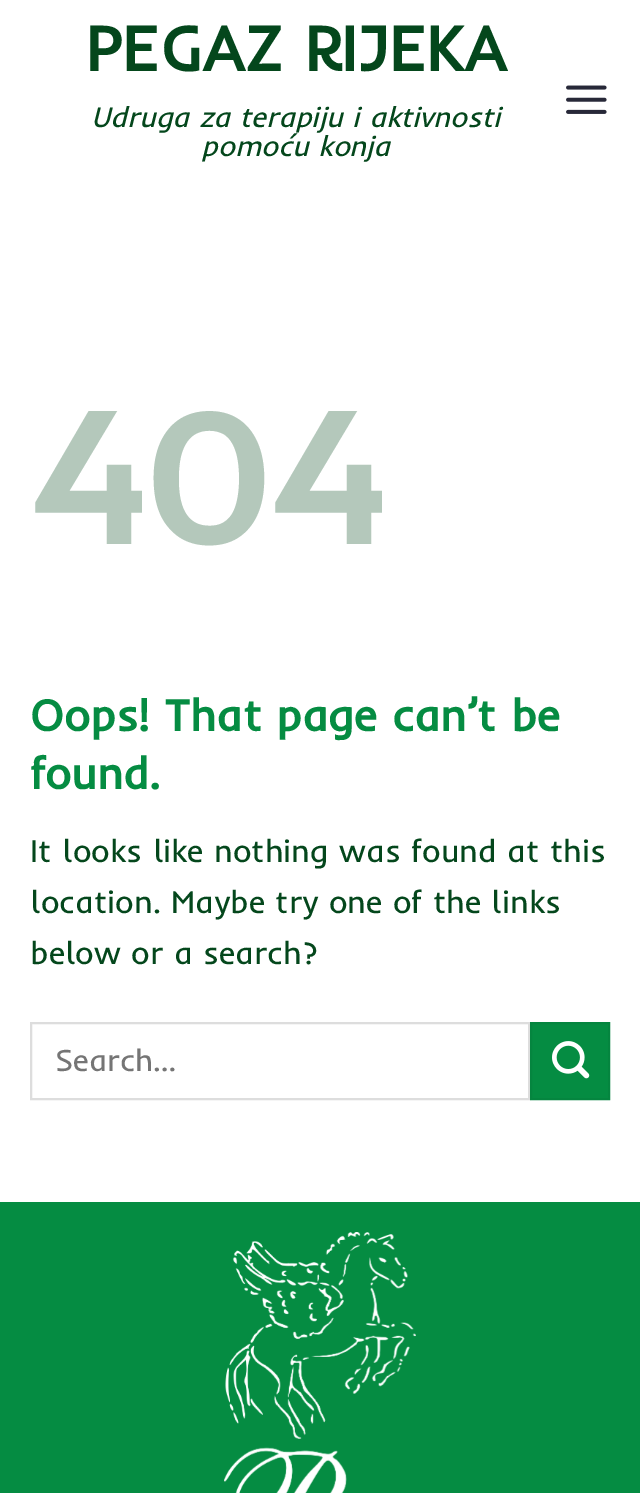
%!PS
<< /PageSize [640 1493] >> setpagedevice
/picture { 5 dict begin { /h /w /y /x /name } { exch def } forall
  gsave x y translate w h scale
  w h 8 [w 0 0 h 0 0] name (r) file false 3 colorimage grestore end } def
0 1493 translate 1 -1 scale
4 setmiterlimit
1 setgray
0 0 640 1493 rectfill
/Inder-Bold [64 0 0 -64 0 0] selectfont
0.016 0.278 0.11 setrgbcolor
85 71 moveto (PEGAZ RIJEKA) show
/Inder-Italic [28.75 0 0 -28.75 0 0] selectfont
91 127 moveto (Udruga za terapiju i aktivnosti) show
201 156 moveto (pomoću konja) show
(img1.rgb) 566 85 41 29 picture
/Inder-Bold [192 0 0 -192 0 0] selectfont
0.706 0.784 0.733 setrgbcolor
30 544 moveto (404) show
/Inder-Bold [44.75 0 0 -44.75 0 0] selectfont
0.02 0.549 0.259 setrgbcolor
30 731 moveto (Oops! That page can’t be) show
30 789 moveto (found.) show
/Inder-Regular [32 0 0 -32 0 0] selectfont
0.016 0.278 0.11 setrgbcolor
30 862 moveto (It looks like nothing was found at this) show
30 913 moveto (location. Maybe try one of the links) show
30 964 moveto (below or a search?) show
0.867 setgray
2 setlinewidth
31 1023 498 76 rectstroke
/Inder-Regular [31 0 0 -31 0 0] selectfont
0.459 setgray
55 1071 moveto (Search…) show
0.02 0.549 0.259 setrgbcolor
newpath 531 1023 moveto 609 1023 lineto 609 1099 lineto 531 1099 lineto closepath gsave fill grestore
0.02 0.522 0.247 setrgbcolor
stroke
(img2.rgb) 552 1041 38 38 picture
0.02 0.549 0.259 setrgbcolor
0 1202 640 291 rectfill
(img3.rgb) 224 1232 192 261 picture
showpage
